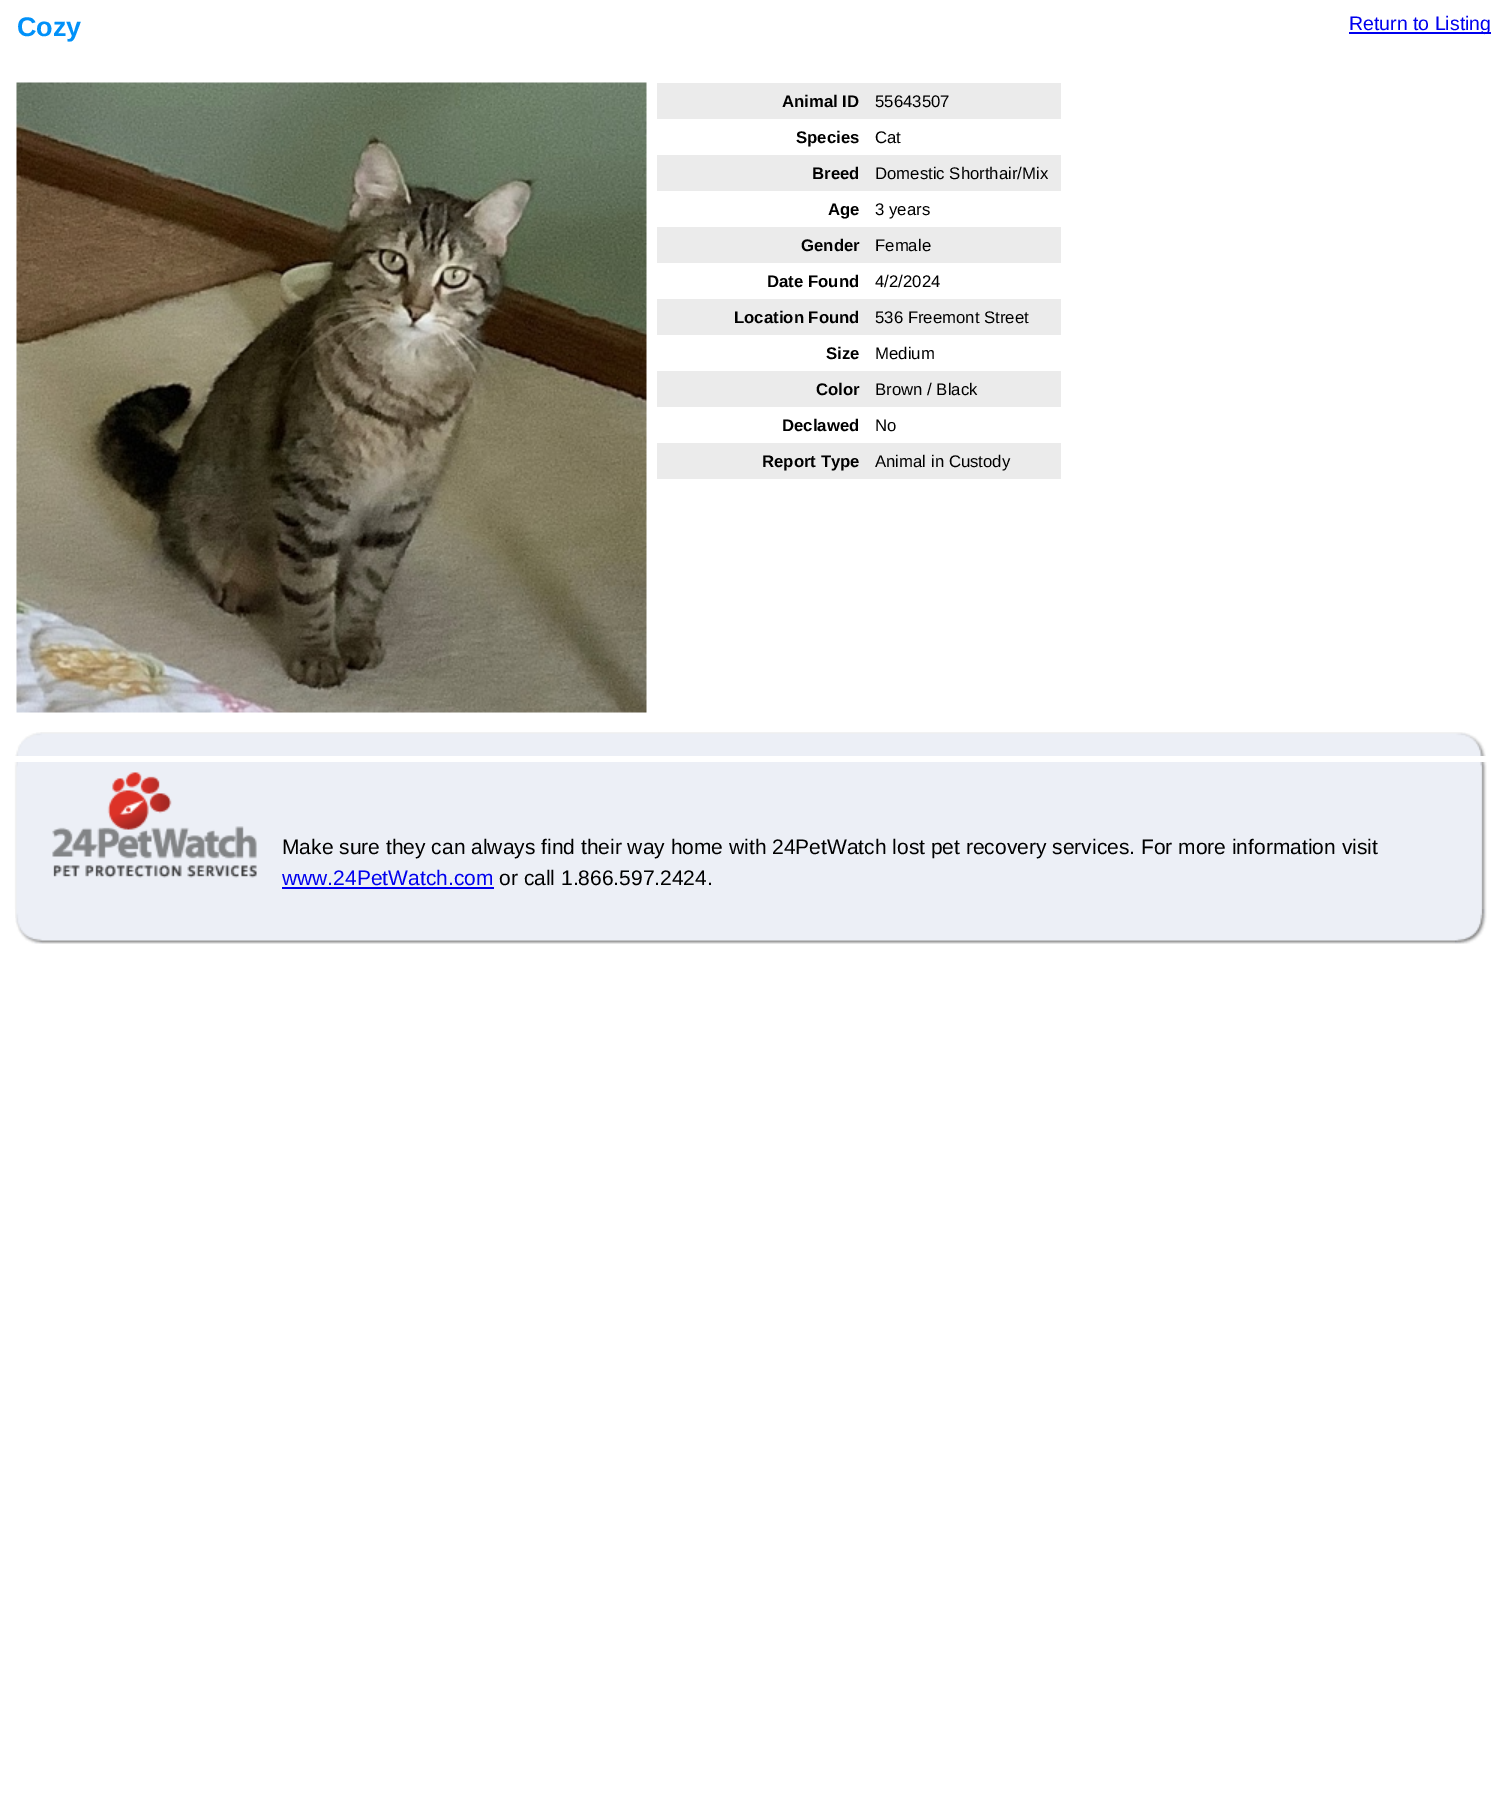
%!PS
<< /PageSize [1502 1812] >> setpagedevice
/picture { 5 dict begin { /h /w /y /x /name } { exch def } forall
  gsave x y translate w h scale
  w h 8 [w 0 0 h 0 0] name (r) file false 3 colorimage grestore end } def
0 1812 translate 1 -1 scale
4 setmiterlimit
1 setgray
0 0 1502 1812 rectfill
/LiberationSans-Bold [27 0 0 -27 0 0] selectfont
0.004 0.569 0.976 setrgbcolor
17 36 moveto (Cozy) show
0 0 0.933 setrgbcolor
1349 32 142 2 rectfill
/LiberationSans-Regular [19.5 0 0 -19.5 0 0] selectfont
1349 30 moveto (Return to Listing) show
(img1.rgb) 16 82 631 631 picture
0.922 setgray
657 83 404 36 rectfill
/LiberationSans-Bold [16.75 0 0 -16.75 0 0] selectfont
0 setgray
782 107 moveto (Animal ID) show
/LiberationSans-Regular [16.75 0 0 -16.75 0 0] selectfont
875 107 moveto (55643507) show
/LiberationSans-Bold [16.75 0 0 -16.75 0 0] selectfont
796 143 moveto (Species) show
/LiberationSans-Regular [16.75 0 0 -16.75 0 0] selectfont
875 143 moveto (Cat) show
0.922 setgray
657 155 404 36 rectfill
/LiberationSans-Bold [16.75 0 0 -16.75 0 0] selectfont
0 setgray
812 179 moveto (Breed) show
/LiberationSans-Regular [16.75 0 0 -16.75 0 0] selectfont
875 179 moveto (Domestic Shorthair/Mix) show
/LiberationSans-Bold [16.75 0 0 -16.75 0 0] selectfont
828 215 moveto (Age) show
/LiberationSans-Regular [16.75 0 0 -16.75 0 0] selectfont
875 215 moveto (3 years) show
0.922 setgray
657 227 404 36 rectfill
/LiberationSans-Bold [16.75 0 0 -16.75 0 0] selectfont
0 setgray
801 251 moveto (Gender) show
/LiberationSans-Regular [16.75 0 0 -16.75 0 0] selectfont
875 251 moveto (Female) show
/LiberationSans-Bold [16.75 0 0 -16.75 0 0] selectfont
767 287 moveto (Date Found) show
/LiberationSans-Regular [16.75 0 0 -16.75 0 0] selectfont
875 287 moveto (4/2/2024) show
0.922 setgray
657 299 404 36 rectfill
/LiberationSans-Bold [16.75 0 0 -16.75 0 0] selectfont
0 setgray
734 323 moveto (Location Found) show
/LiberationSans-Regular [16.75 0 0 -16.75 0 0] selectfont
875 323 moveto (536 Freemont Street) show
/LiberationSans-Bold [16.75 0 0 -16.75 0 0] selectfont
826 359 moveto (Size) show
/LiberationSans-Regular [16.75 0 0 -16.75 0 0] selectfont
875 359 moveto (Medium) show
0.922 setgray
657 371 404 36 rectfill
/LiberationSans-Bold [16.75 0 0 -16.75 0 0] selectfont
0 setgray
816 395 moveto (Color) show
/LiberationSans-Regular [16.75 0 0 -16.75 0 0] selectfont
875 395 moveto (Brown / Black) show
/LiberationSans-Bold [16.75 0 0 -16.75 0 0] selectfont
782 431 moveto (Declawed) show
/LiberationSans-Regular [16.75 0 0 -16.75 0 0] selectfont
875 431 moveto (No) show
0.922 setgray
657 443 404 36 rectfill
/LiberationSans-Bold [16.75 0 0 -16.75 0 0] selectfont
0 setgray
762 467 moveto (Report Type) show
/LiberationSans-Regular [16.75 0 0 -16.75 0 0] selectfont
875 467 moveto (Animal in Custody) show
(img2.rgb) 15 732 27 24 picture
(img3.rgb) 42 732 1413 24 picture
(img4.rgb) 1455 732 31 24 picture
0.925 0.937 0.965 setrgbcolor
18 762 1462 147 rectfill
(img5.rgb) 12 762 6 147 picture
(img6.rgb) 52 772 205 106 picture
/LiberationSans-Regular [21 0 0 -21 0 0] selectfont
0 setgray
282 854 moveto (Make sure they can always find their way home with 24PetWatch lost pet recovery services. For more information visit) show
0 0 0.933 setrgbcolor
282 885 moveto (www.24PetWatch.com) show
282 887 212 2 rectfill
0 setgray
499 885 moveto (or call 1.866.597.2424.) show
(img7.rgb) 1480 762 11 147 picture
(img8.rgb) 15 909 27 35 picture
(img9.rgb) 42 909 1413 35 picture
(img10.rgb) 1455 909 32 35 picture
showpage
